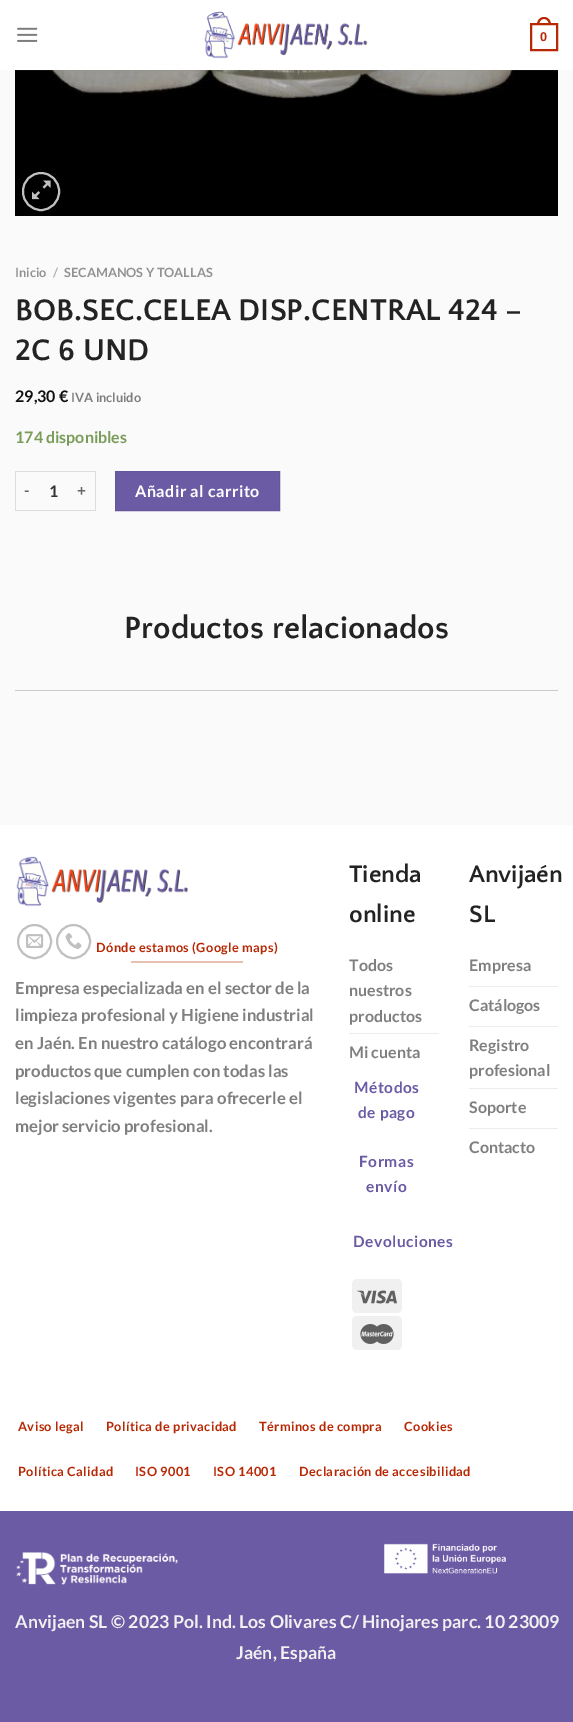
%!PS
<< /PageSize [573 1722] /PageUsesTransparency true >> setpagedevice
/alpha { dup .setfillconstantalpha .setstrokeconstantalpha } def
/roundrect { 5 dict begin { /r /h /w /y /x } { exch def } forall
  x r add y moveto x w add y 2 copy h add r arct x w add y h add x 1 index r arct
  x y h add x y r arct x y 2 copy exch w add exch r arct closepath end } def
/picture { 5 dict begin { /h /w /y /x /name } { exch def } forall
  gsave x y translate w h scale
  w h 8 [w 0 0 h 0 0] name (r) file false 3 colorimage grestore end } def
0 .pushpdf14devicefilter
0 1722 translate 1 -1 scale
4 setmiterlimit
0.98 setgray
0 0 573 1722 rectfill
1 setgray
0 0 573 70 rectfill
(img1.rgb) 17 27 21 15 picture
(img2.rgb) 204 11 164 48 picture
0.718 0.157 0.016 setrgbcolor
2 setlinewidth
531 24 26 26 rectstroke
newpath 544 17 moveto 548.5 17 551 21 551 25 curveto 537 25 lineto 537 21 539.5 17 544 17 curveto closepath 544 19 moveto 547.5 19 549 22 549 25 curveto 539 25 lineto 539 22 540.5 19 544 19 curveto closepath eofill
/LiberationSans-Bold [12.75 0 0 -12.75 0 0] selectfont
540 41 moveto (0) show
(img3.rgb) 15 70 543 146 picture
0.1 alpha
0.498 setgray
15 70 543 1 rectfill
1 alpha
0.753 setgray
23 173 36 37 18 roundrect stroke
(img4.rgb) 32 180 19 20 picture
/Lato-Bold [12.75 0 0 -12.75 0 0] selectfont
0.573 setgray
15 277 moveto (Inicio) show
0.682 setgray
53 277 moveto (/) show
0.573 setgray
64 277 moveto (SECAMANOS Y TOALLAS) show
/QuattrocentoSans-Bold [31.25 0 0 -31.25 0 0] selectfont
0.137 setgray
15 320 moveto (BOB.SEC.CELEA DISP.CENTRAL 424 –) show
15 360 moveto (2C 6 UND) show
/Lato-Bold [16 0 0 -16 0 0] selectfont
0.067 setgray
15 402 moveto (29,30 €) show
/Lato-Bold [12.75 0 0 -12.75 0 0] selectfont
0.498 setgray
71 402 moveto (IVA incluido) show
/Lato-Bold [16 0 0 -16 0 0] selectfont
0.478 0.612 0.349 setrgbcolor
15 443 moveto (174 disponibles) show
0.867 setgray
15 471 81 1 rectfill
15 510 55 1 rectfill
15 471 1 40 rectfill
/Lato-Bold [15.5 0 0 -15.5 0 0] selectfont
0.4 setgray
24 496 moveto 0.5 0 (-) ashow
/Lato-Bold [16 0 0 -16 0 0] selectfont
0.2 setgray
49 497 moveto (1) show
0.867 setgray
95 471 1 40 rectfill
70 510 26 1 rectfill
/Lato-Bold [15.5 0 0 -15.5 0 0] selectfont
0.4 setgray
77 496 moveto 0.5 0 (+) ashow
0.42 0.353 0.643 setrgbcolor
newpath 115.5 471.5 moveto 279.5 471.5 lineto 279.5 510.5 lineto 115.5 510.5 lineto closepath gsave fill grestore
0.4 0.337 0.612 setrgbcolor
1 setlinewidth
stroke
/Lato-Bold [16 0 0 -16 0 0] selectfont
1 setgray
135 497 moveto 0.5 0 (Añadir al carrito) ashow
/QuattrocentoSans-Bold [32 0 0 -32 0 0] selectfont
0.137 setgray
124 638 moveto (Productos relacionados) show
0.792 setgray
15 690 543 1 rectfill
1 setgray
0 825 573 686 rectfill
(img5.rgb) 16 856 173 51 picture
0.753 setgray
2 setlinewidth
newpath 34.5 941.5 16.5 0 360 arc closepath stroke
(img6.rgb) 26 934 18 14 picture
newpath 73.5 941.5 16.5 0 360 arc closepath stroke
(img7.rgb) 65 933 17 16 picture
/Lato-Bold [12.75 0 0 -12.75 0 0] selectfont
0.718 0.157 0.016 setrgbcolor
96 952 moveto 0.4 0 (Dónde estamos \(Google maps\)) ashow
0.914 0.749 0.706 setrgbcolor
131 961 112 2 rectfill
/Lato-Bold [16.75 0 0 -16.75 0 0] selectfont
0.498 setgray
15 994 moveto (Empresa especializada en el sector de la) show
15 1021 moveto (limpieza profesional y Higiene industrial) show
15 1049 moveto (en Jaén. En nuestro catálogo encontrará) show
15 1077 moveto (productos que cumplen con todas las) show
15 1104 moveto (legislaciones vigentes para ofrecerle el) show
15 1132 moveto (mejor servicio profesional.) show
/QuattrocentoSans-Bold [25 0 0 -25 0 0] selectfont
0.137 setgray
349 882 moveto (Tienda) show
349 922 moveto (online) show
0.925 setgray
349 1033 90 1 rectfill
/Lato-Bold [16 0 0 -16 0 0] selectfont
0.498 setgray
349 971 moveto (Todos) show
349 996 moveto (nuestros) show
349 1022 moveto (productos) show
349 1058 moveto (Mi cuenta) show
/Lato-Bold [15.5 0 0 -15.5 0 0] selectfont
0.42 0.353 0.643 setrgbcolor
354 1093 moveto 0.5 0 (Métodos) ashow
358 1118 moveto 0.5 0 (de pago) ashow
359 1167 moveto 0.5 0 (Formas) ashow
366 1192 moveto 0.5 0 (envío) ashow
353 1247 moveto 0.5 0 (Devoluciones) ashow
0.941 setgray
352 1279 50 34 5 roundrect fill
(img8.rgb) 357 1290 40 14 picture
352 1316 50 34 5 roundrect fill
(img9.rgb) 360 1324 34 20 picture
/QuattrocentoSans-Bold [25 0 0 -25 0 0] selectfont
0.137 setgray
469 882 moveto (Anvijaén) show
469 922 moveto (SL) show
0.925 setgray
469 986 89 1 rectfill
/Lato-Bold [16 0 0 -16 0 0] selectfont
0.498 setgray
469 971 moveto (Empresa) show
0.925 setgray
469 1026 89 1 rectfill
0.498 setgray
469 1011 moveto (Catálogos) show
0.925 setgray
469 1088 89 1 rectfill
0.498 setgray
469 1051 moveto (Registro) show
469 1076 moveto (profesional) show
0.925 setgray
469 1128 89 1 rectfill
0.498 setgray
469 1113 moveto (Soporte) show
469 1153 moveto (Contacto) show
/Lato-Bold [12.75 0 0 -12.75 0 0] selectfont
0.718 0.157 0.016 setrgbcolor
18 1431 moveto 0.4 0 (Aviso legal) ashow
106 1431 moveto 0.4 0 (Política de privacidad) ashow
259 1431 moveto 0.4 0 (Términos de compra) ashow
404 1431 moveto 0.4 0 (Cookies) ashow
18 1476 moveto 0.4 0 (Política Calidad) ashow
135 1476 moveto 0.4 0 (ISO 9001) ashow
213 1476 moveto 0.4 0 (ISO 14001) ashow
299 1476 moveto 0.4 0 (Declaración de accesibilidad) ashow
0.42 0.353 0.643 setrgbcolor
0 1511 573 211 rectfill
(img10.rgb) 16 1552 162 33 picture
(img11.rgb) 384 1543 122 31 picture
/Lato-Bold [17.7 0 0 -17.7 0 0] selectfont
0.945 setgray
15 1628 moveto (Anvijaen SL © 2023 Pol. Ind. Los Olivares C/ Hinojares parc. 10 23009) show
236 1659 moveto (Jaén, España) show
.poppdf14devicefilter showpage
